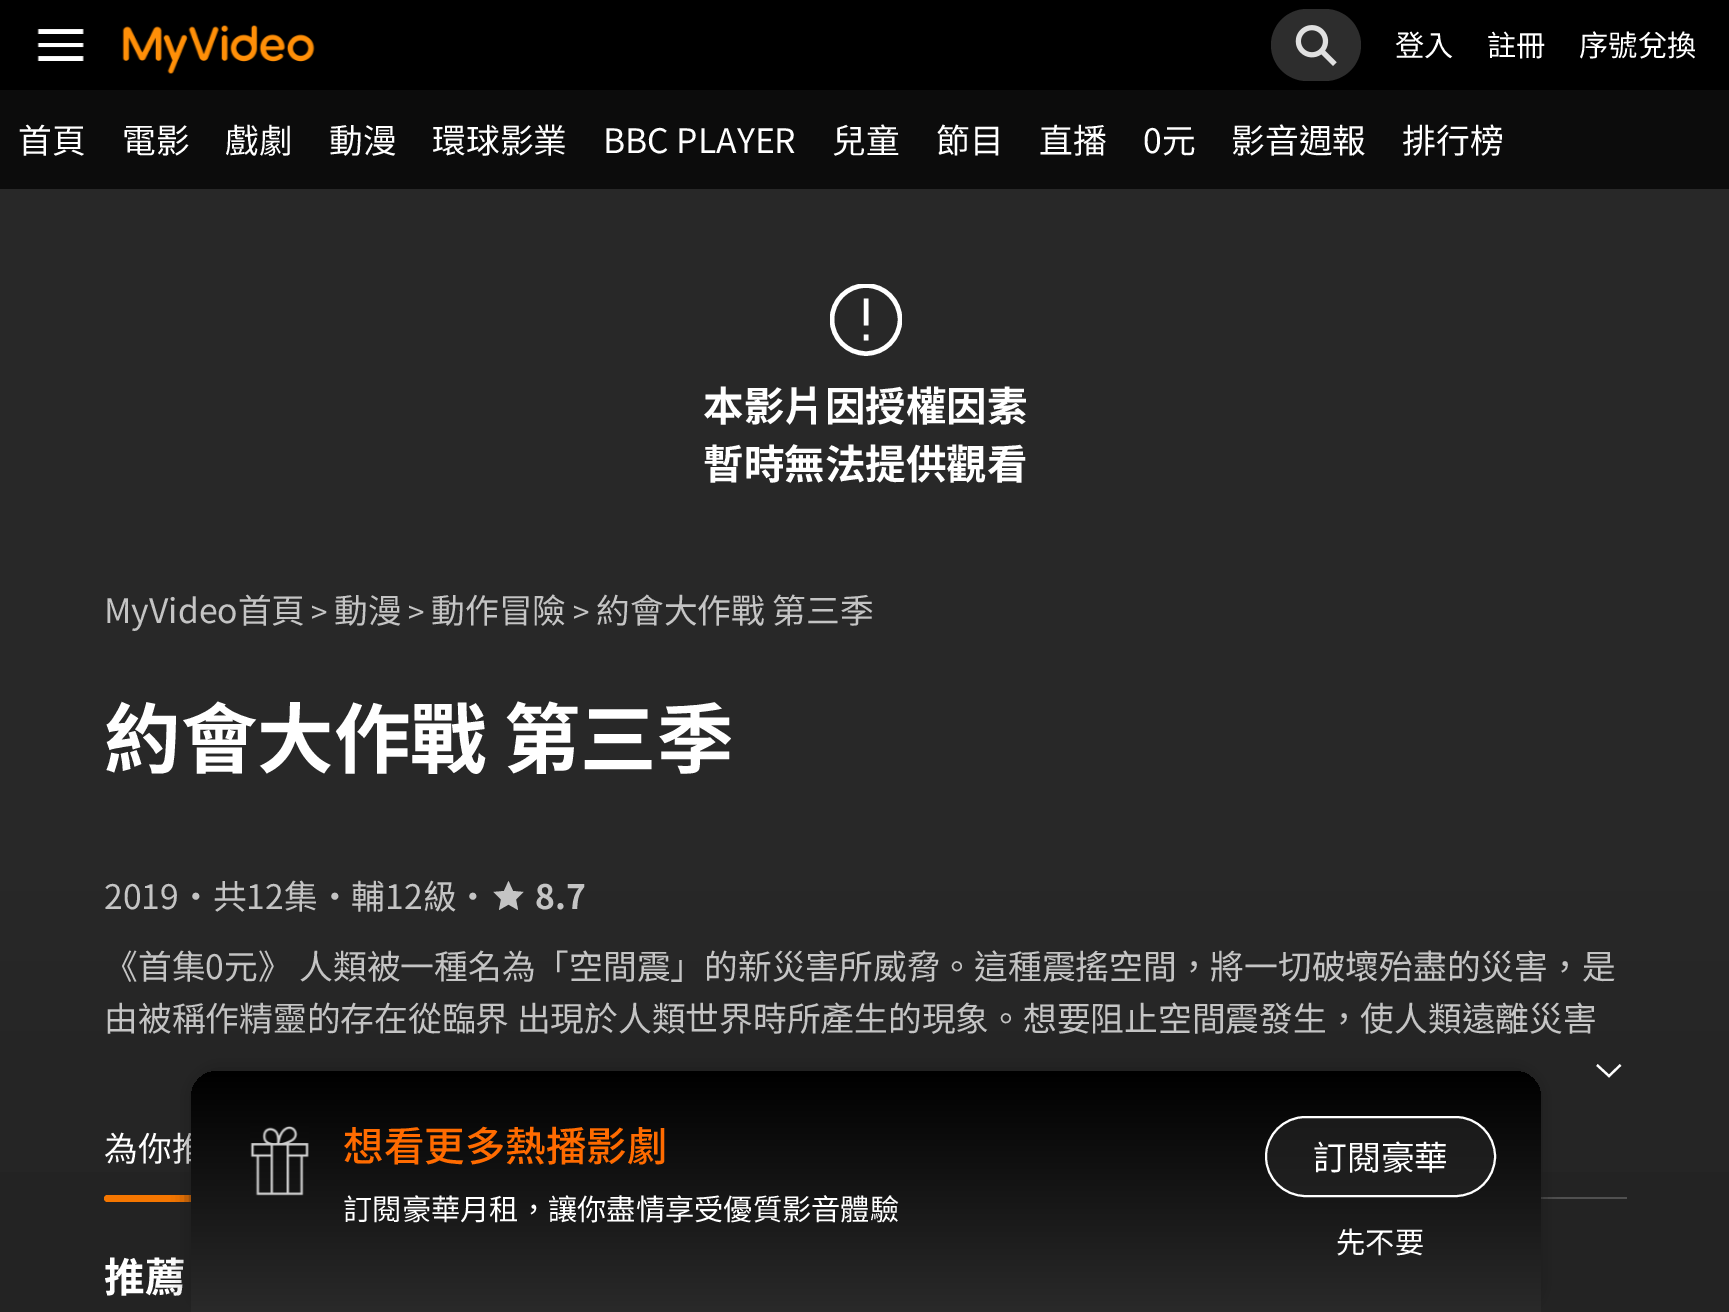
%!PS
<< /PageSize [1729 1312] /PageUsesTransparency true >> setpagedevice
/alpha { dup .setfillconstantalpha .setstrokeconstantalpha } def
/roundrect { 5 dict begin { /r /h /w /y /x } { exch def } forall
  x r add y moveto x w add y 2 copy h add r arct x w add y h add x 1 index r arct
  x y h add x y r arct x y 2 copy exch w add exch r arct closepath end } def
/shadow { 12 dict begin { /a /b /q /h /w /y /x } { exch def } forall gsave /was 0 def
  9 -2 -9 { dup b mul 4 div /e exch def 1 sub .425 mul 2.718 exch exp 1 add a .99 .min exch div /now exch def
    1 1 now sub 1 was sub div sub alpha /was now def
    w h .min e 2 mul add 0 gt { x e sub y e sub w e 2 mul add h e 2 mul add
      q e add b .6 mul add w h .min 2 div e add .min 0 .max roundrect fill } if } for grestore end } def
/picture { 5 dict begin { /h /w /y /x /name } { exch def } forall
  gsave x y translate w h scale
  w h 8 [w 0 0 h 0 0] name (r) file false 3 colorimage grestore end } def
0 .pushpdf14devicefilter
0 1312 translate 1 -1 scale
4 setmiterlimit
1 setgray
0 0 1729 1312 rectfill
0 setgray
0 0 1729 90 rectfill
(img1.rgb) 37 29 47 32 picture
(img2.rgb) 122 25 193 49 picture
0.176 setgray
1271 9 90 72 36 roundrect fill
(img3.rgb) 1295 25 42 41 picture
/NotoSansTC-Regular [29.25 0 0 -29.25 0 0] selectfont
1 setgray
1395 56 moveto (登入) show
1487 56 moveto (註冊) show
1579 56 moveto (序號兌換) show
0.047 setgray
0 90 1729 99 rectfill
/NotoSansTC-Regular [33.75 0 0 -33.75 0 0] selectfont
1 setgray
18 153 moveto (首頁) show
122 153 moveto (電影) show
225 153 moveto (戲劇) show
329 153 moveto (動漫) show
432 153 moveto (環球影業) show
603 153 moveto (BBC PLAYER) show
832 153 moveto (兒童) show
936 153 moveto (節目) show
1039 153 moveto (直播) show
1143 153 moveto (0元) show
1231 153 moveto (影音週報) show
1402 153 moveto (排行榜) show
gsave newpath 0 189 moveto 1729 189 lineto 1729 1312 lineto 0 1312 lineto closepath clip newpath
<< /ShadingType 2 /ColorSpace /DeviceRGB /Coords [865 189 865 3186] /Extend [true true] /Function << /FunctionType 3 /Domain [0 1] /Functions [<< /FunctionType 2 /Domain [0 1] /C0 [0.157 0.157 0.157] /C1 [0.157 0.157 0.157] /N 1 >> << /FunctionType 2 /Domain [0 1] /C0 [0.157 0.157 0.157] /C1 [0.145 0.145 0.145] /N 1 >> << /FunctionType 2 /Domain [0 1] /C0 [0.145 0.145 0.145] /C1 [0.137 0.137 0.137] /N 1 >> << /FunctionType 2 /Domain [0 1] /C0 [0.137 0.137 0.137] /C1 [0.129 0.129 0.129] /N 1 >> << /FunctionType 2 /Domain [0 1] /C0 [0.129 0.129 0.129] /C1 [0.129 0.129 0.129] /N 1 >>] /Bounds [0.23 0.31 0.38 0.57] /Encode [0 1 0 1 0 1 0 1 0 1] >> >> shfill grestore
gsave
830 284 72 72 rectclip
4.5 setlinewidth
newpath 866 319.5 34 0 360 arc closepath stroke
grestore
4.5 setlinewidth
newpath 866 298.5 moveto 866 325.5 lineto 866 340.5 moveto 866 334.5 lineto stroke
/NotoSansTC-Bold [40.5 0 0 -40.5 0 0] selectfont
703 421 moveto (本影片因授權因素) show
703 479 moveto (暫時無法提供觀看) show
/NotoSansTC-Regular [33.75 0 0 -33.75 0 0] selectfont
0.769 setgray
104 623 moveto (MyVideo首頁) show
/NotoSansTC-Regular [29.25 0 0 -29.25 0 0] selectfont
311 623 moveto (>) show
/NotoSansTC-Regular [33.75 0 0 -33.75 0 0] selectfont
334 623 moveto (動漫) show
/NotoSansTC-Regular [29.25 0 0 -29.25 0 0] selectfont
408 623 moveto (>) show
/NotoSansTC-Regular [33.75 0 0 -33.75 0 0] selectfont
431 623 moveto (動作冒險) show
/NotoSansTC-Regular [29.25 0 0 -29.25 0 0] selectfont
573 623 moveto (>) show
/NotoSansTC-Regular [33.75 0 0 -33.75 0 0] selectfont
596 623 moveto (約會大作戰 第三季) show
/NotoSansTC-Bold [76.5 0 0 -76.5 0 0] selectfont
1 setgray
104 767 moveto (約會大作戰 第三季) show
/NotoSansTC-Regular [33.75 0 0 -33.75 0 0] selectfont
0.769 setgray
104 909 moveto (2019・共12集・輔12級・) show
newpath 508.5 904.5 moveto 499 910 lineto 501 899.5 lineto 493.5 892 lineto 504 891 lineto 508.5 881 lineto 513 891 lineto 523.5 892 lineto 516 899.5 lineto 518 910 lineto closepath fill
/NotoSansTC-Bold [33.75 0 0 -33.75 0 0] selectfont
535 909 moveto (8.7) show
/NotoSansTC-Regular [33.75 0 0 -33.75 0 0] selectfont
104 979 moveto (《首集0元》 人類被一種名為「空間震」的新災害所威脅。這種震搖空間，將一切破壞殆盡的災害，是) show
104 1031 moveto (由被稱作精靈的存在從臨界 出現於人類世界時所產生的現象。想要阻止空間震發生，使人類遠離災害) show
1 setgray
2.2 setlinewidth
newpath 1620.5 1065 moveto 1609 1076 lineto 1597 1065 lineto stroke
0.314 setgray
104 1197 1523 2 rectfill
1 setgray
104 1161 moveto (為你推) show
0.961 0.463 0 setrgbcolor
104 1195 135 7 3.5 roundrect fill
/NotoSansTC-Bold [40.5 0 0 -40.5 0 0] selectfont
1 setgray
104 1292 moveto (推薦) show
0.106 setgray
191 1069 1350 243 27 9 0.8 shadow
gsave newpath 218 1071 moveto 1514 1071 lineto 1529 1071 1541 1083 1541 1098 curveto 1541 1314 lineto 191 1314 lineto 191 1098 lineto 191 1083 203 1071 218 1071 curveto closepath clip newpath
<< /ShadingType 2 /ColorSpace /DeviceRGB /Coords [866 1071 866 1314] /Extend [true true] /Function << /FunctionType 2 /Domain [0 1] /C0 [0 0 0] /C1 [0.165 0.165 0.165] /N 1 >> >> shfill grestore
(img4.rgb) 250 1126 59 70 picture
/NotoSansTC-Medium [40.5 0 0 -40.5 0 0] selectfont
1 0.42 0 setrgbcolor
343 1161 moveto (想看更多熱播影劇) show
/NotoSansTC-Regular [29.25 0 0 -29.25 0 0] selectfont
1 setgray
343 1220 moveto (訂閱豪華月租，讓你盡情享受優質影音體驗) show
0.6 alpha
0.149 setgray
1266 1117 229 79 39.5 roundrect fill
1 alpha
1 setgray
2 setlinewidth
1266 1117 229 79 39.5 roundrect stroke
/NotoSansTC-Regular [33.75 0 0 -33.75 0 0] selectfont
1313 1170 moveto (訂閱豪華) show
/NotoSansTC-Regular [29.25 0 0 -29.25 0 0] selectfont
1336 1253 moveto (先不要) show
.poppdf14devicefilter showpage
